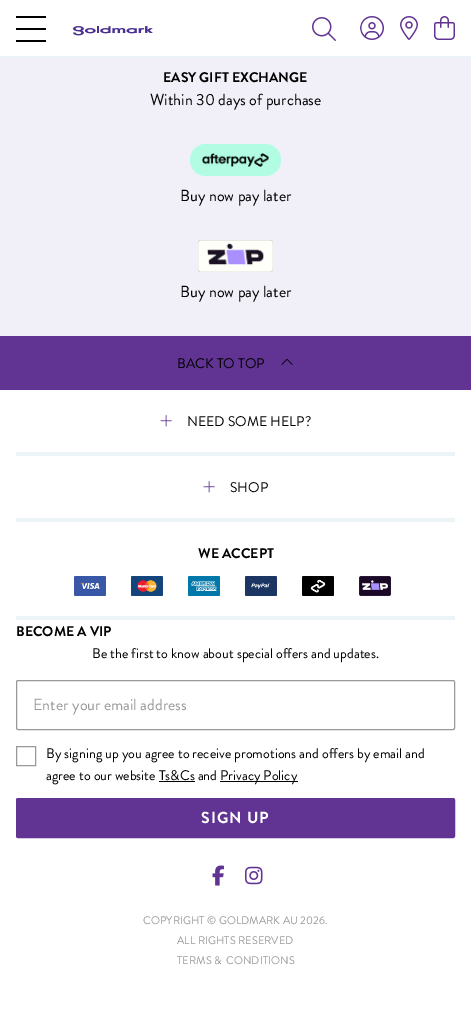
%!PS
<< /PageSize [471 1011] >> setpagedevice
/roundrect { 5 dict begin { /r /h /w /y /x } { exch def } forall
  x r add y moveto x w add y 2 copy h add r arct x w add y h add x 1 index r arct
  x y h add x y r arct x y 2 copy exch w add exch r arct closepath end } def
/picture { 5 dict begin { /h /w /y /x /name } { exch def } forall
  gsave x y translate w h scale
  w h 8 [w 0 0 h 0 0] name (r) file false 3 colorimage grestore end } def
0 1011 translate 1 -1 scale
4 setmiterlimit
1 setgray
0 0 471 1011 rectfill
0.929 0.957 0.973 setrgbcolor
0 56 471 2 rectfill
0 setgray
16 16 30 2 rectfill
16 28 30 2 rectfill
16 40 30 2 rectfill
(img1.rgb) 73 26 80 10 picture
(img2.rgb) 312 17 24 24 picture
(img3.rgb) 360 16 24 24 picture
(img4.rgb) 400 16 18 24 picture
(img5.rgb) 434 16 21 24 picture
0.945 0.941 0.973 setrgbcolor
0 58 471 278 rectfill
/BrandonGrotesque-Bold [14 0 0 -14 0 0] selectfont
0 setgray
163 82 moveto (EASY GIFT EXCHANGE) show
/BrandonGrotesque-Regular [16 0 0 -16 0 0] selectfont
150 105 moveto (Within 30 days of purchase) show
(img6.rgb) 190 144 91 32 picture
180 201 moveto (Buy now pay later) show
(img7.rgb) 198 240 75 32 picture
180 297 moveto (Buy now pay later) show
0.38 0.2 0.576 setrgbcolor
0 336 471 54 rectfill
/BrandonGrotesque-Regular [14 0 0 -14 0 0] selectfont
0 setgray
177 368 moveto (BACK TO TOP) show
(img8.rgb) 281 358 12 7 picture
0.929 0.957 0.973 setrgbcolor
16 452 439 4 rectfill
(img9.rgb) 160 415 12 12 picture
0 setgray
187 426 moveto (NEED SOME HELP?) show
0.929 0.957 0.973 setrgbcolor
16 518 439 4 rectfill
(img9.rgb) 203 481 12 12 picture
0 setgray
230 492 moveto (SHOP) show
0.929 0.957 0.973 setrgbcolor
16 616 439 4 rectfill
/BrandonGrotesque-Bold [14 0 0 -14 0 0] selectfont
0 setgray
198 558 moveto (WE ACCEPT) show
(img10.rgb) 74 576 32 20 picture
(img11.rgb) 131 576 32 20 picture
(img12.rgb) 188 576 32 20 picture
(img13.rgb) 245 576 32 20 picture
(img14.rgb) 302 576 32 20 picture
(img15.rgb) 359 576 32 20 picture
16 636 moveto (BECOME A VIP) show
/BrandonGrotesque-Regular [14 0 0 -14 0 0] selectfont
92 658 moveto (Be the first to know about special offers and updates.) show
0.6 setgray
16.5 680.5 438 49 1.5 roundrect stroke
/BrandonGrotesque-Regular [16 0 0 -16 0 0] selectfont
33 710 moveto (Enter your email address) show
16.5 746.5 19 19 rectstroke
/BrandonGrotesque-Regular [14 0 0 -14 0 0] selectfont
0 setgray
46 758 moveto (By signing up you agree to receive promotions and offers by email and) show
46 780 moveto (agree to our website Ts&Cs and) show
220 781 78 1 rectfill
220 780 moveto (Privacy Policy) show
159 781 36 1 rectfill
0.38 0.2 0.576 setrgbcolor
16.5 798.5 438 39 1.5 roundrect gsave fill grestore
stroke
/BrandonGrotesque-Bold [16 0 0 -16 0 0] selectfont
1 setgray
201 823 moveto 1 0 (SIGN UP) ashow
(img16.rgb) 212 865 12 21 picture
(img17.rgb) 245 866 18 19 picture
/BrandonGrotesque-Regular [11 0 0 -11 0 0] selectfont
0.6 setgray
143 924 moveto (COPYRIGHT © GOLDMARK AU 2026.) show
177 944 moveto (ALL RIGHTS RESERVED) show
177 964 moveto (TERMS &  CONDITIONS) show
showpage
